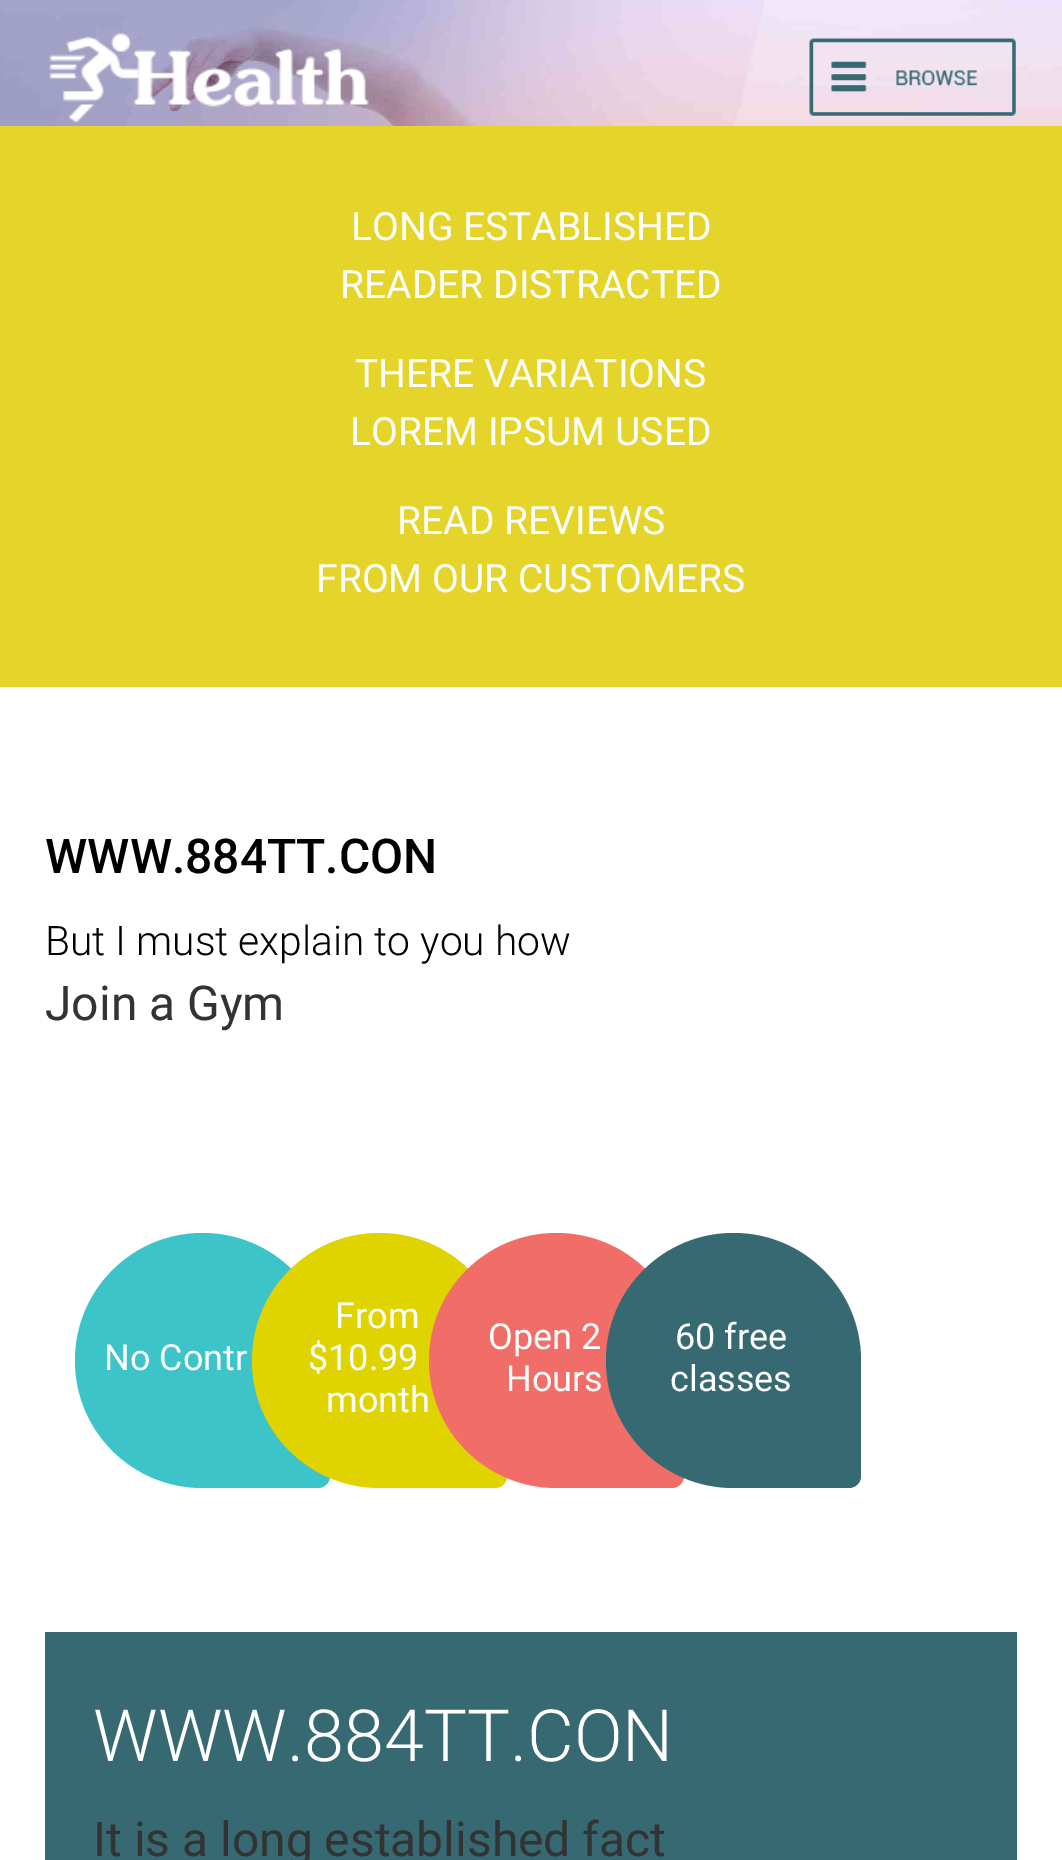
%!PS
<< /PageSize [1062 1860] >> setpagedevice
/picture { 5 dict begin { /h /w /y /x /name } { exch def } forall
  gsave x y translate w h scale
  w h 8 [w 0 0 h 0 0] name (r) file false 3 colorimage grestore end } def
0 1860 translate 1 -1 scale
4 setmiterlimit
1 setgray
0 0 1062 1860 rectfill
(img1.rgb) 0 0 1062 126 picture
(img2.rgb) 49 33 320 90 picture
(img3.rgb) 809 38 207 78 picture
0.898 0.831 0.165 setrgbcolor
0 126 1062 561 rectfill
/Roboto-Regular [39 0 0 -39 0 0] selectfont
1 setgray
351 240 moveto (LONG ESTABLISHED) show
340 298 moveto (READER DISTRACTED) show
355 387 moveto (THERE VARIATIONS) show
350 445 moveto (LOREM IPSUM USED) show
397 534 moveto (READ REVIEWS) show
316 592 moveto (FROM OUR CUSTOMERS) show
/Roboto-Medium [48 0 0 -48 0 0] selectfont
0 setgray
45 873 moveto (WWW.884TT.CON) show
/Roboto-Light [40.75 0 0 -40.75 0 0] selectfont
45 955 moveto (But I must explain to you how) show
/Roboto-Regular [48 0 0 -48 0 0] selectfont
0.2 setgray
45 1020 moveto (Join a Gym) show
0.235 0.769 0.788 setrgbcolor
newpath 202.5 1233 moveto 273 1233 330 1290 330 1360.5 curveto 330 1476 lineto 330 1482.5 324.5 1488 318 1488 curveto 202.5 1488 lineto 132 1488 75 1431 75 1360.5 curveto 75 1290 132 1233 202.5 1233 curveto closepath fill
/Roboto-Regular [36 0 0 -36 0 0] selectfont
1 setgray
104 1370 moveto (No Contr) show
0.875 0.831 0 setrgbcolor
newpath 379.5 1233 moveto 450 1233 507 1290 507 1360.5 curveto 507 1476 lineto 507 1482.5 501.5 1488 495 1488 curveto 379.5 1488 lineto 309 1488 252 1431 252 1360.5 curveto 252 1290 309 1233 379.5 1233 curveto closepath fill
1 setgray
335 1328 moveto (From) show
308 1370 moveto ($10.99) show
326 1412 moveto (month) show
0.941 0.427 0.408 setrgbcolor
newpath 556.5 1233 moveto 627 1233 684 1290 684 1360.5 curveto 684 1476 lineto 684 1482.5 678.5 1488 672 1488 curveto 556.5 1488 lineto 486 1488 429 1431 429 1360.5 curveto 429 1290 486 1233 556.5 1233 curveto closepath fill
1 setgray
488 1349 moveto (Open 2) show
506 1391 moveto (Hours) show
0.212 0.412 0.447 setrgbcolor
newpath 733.5 1233 moveto 804 1233 861 1290 861 1360.5 curveto 861 1476 lineto 861 1482.5 855.5 1488 849 1488 curveto 733.5 1488 lineto 663 1488 606 1431 606 1360.5 curveto 606 1290 663 1233 733.5 1233 curveto closepath fill
1 setgray
675 1349 moveto (60 free) show
670 1391 moveto (classes) show
0.212 0.412 0.447 setrgbcolor
45 1632 972 228 rectfill
/Roboto-Light [72 0 0 -72 0 0] selectfont
1 setgray
93 1761 moveto (WWW.884TT.CON) show
/Roboto-Regular [48 0 0 -48 0 0] selectfont
0.2 setgray
93 1856 moveto (It is a long established fact) show
showpage
